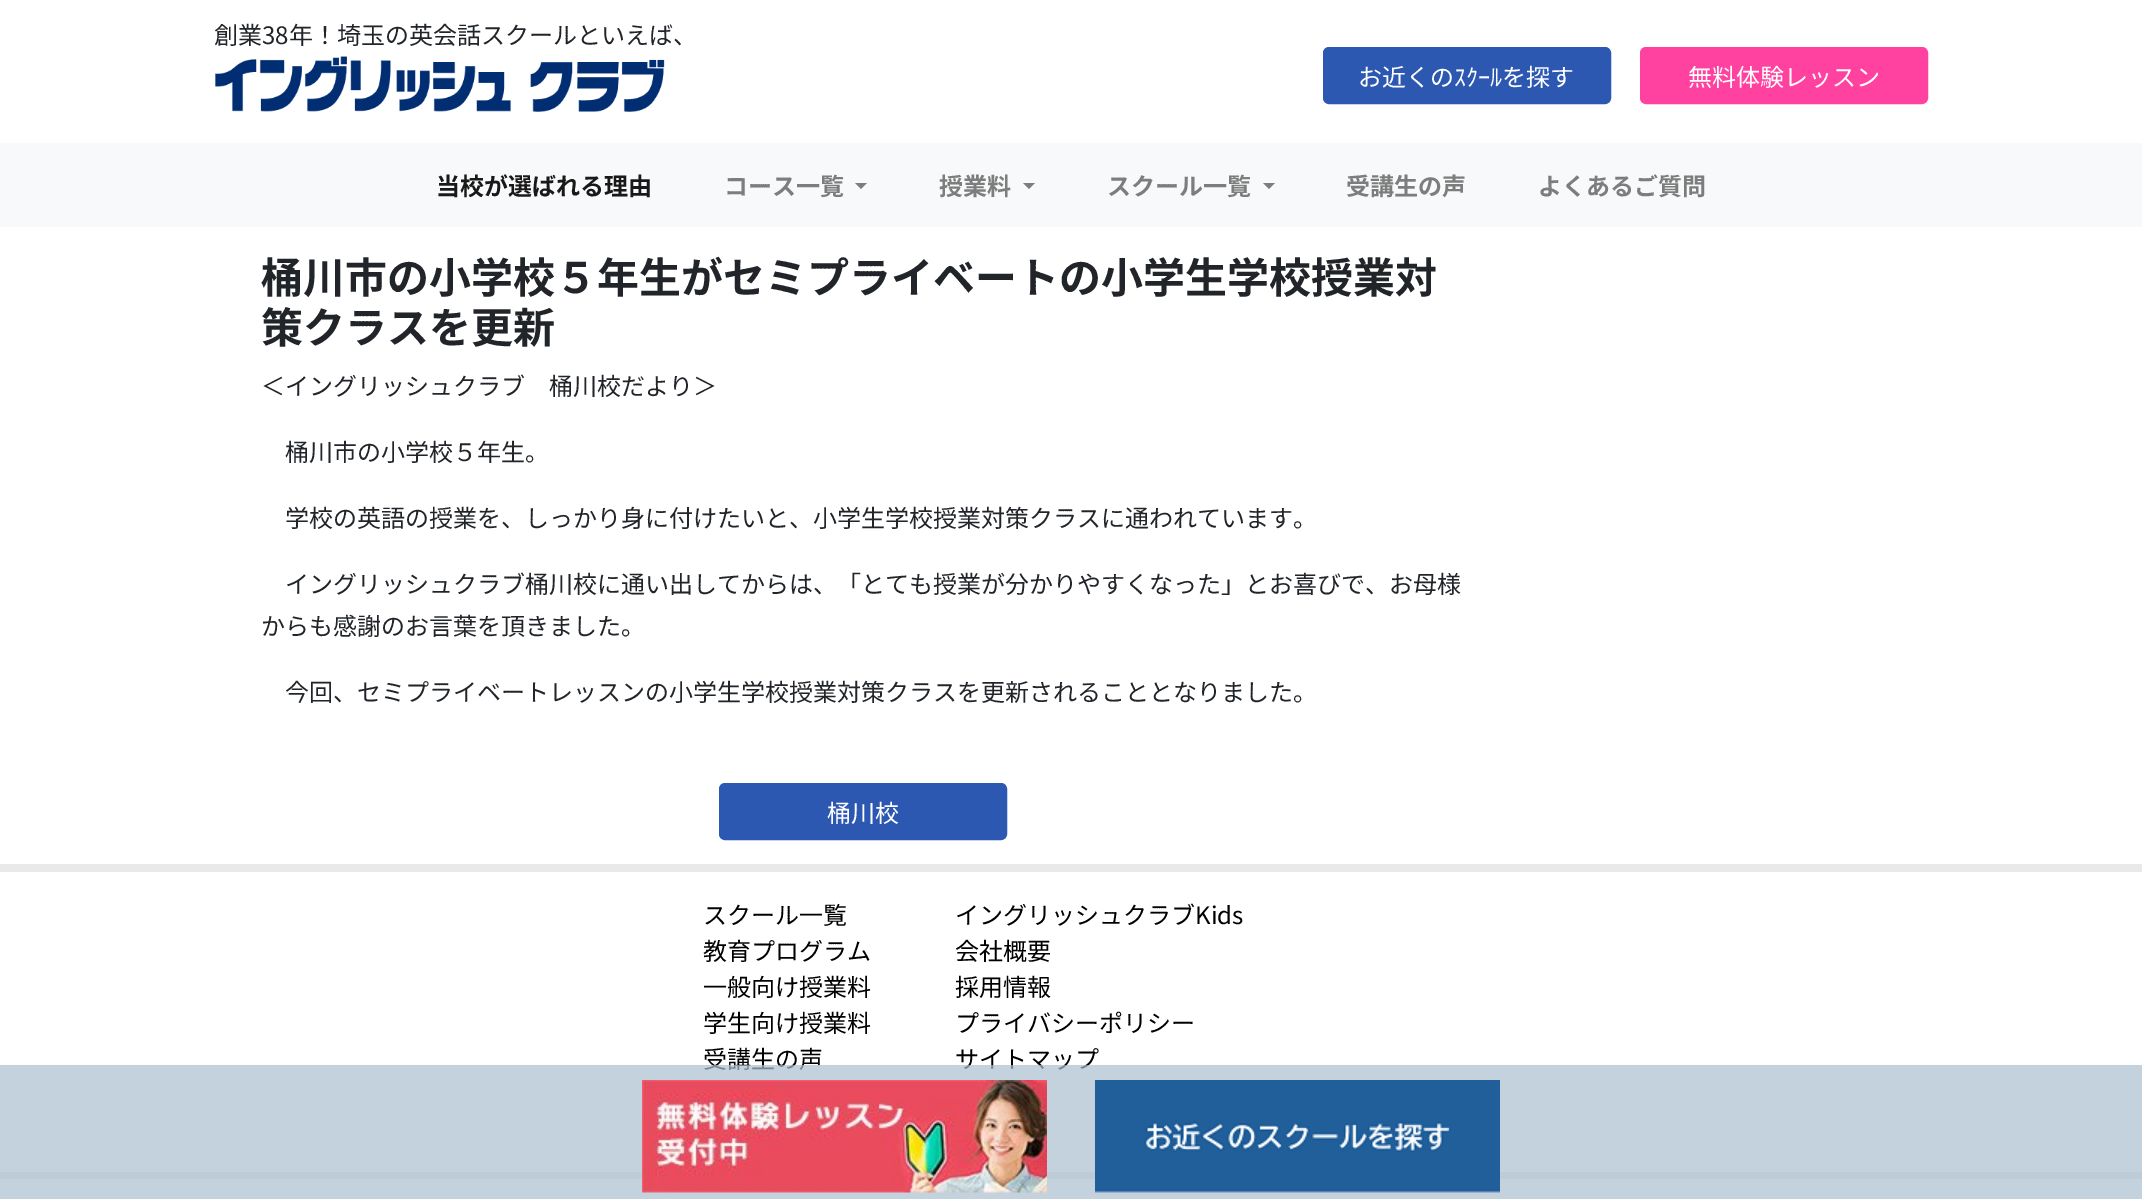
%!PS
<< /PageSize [2142 1199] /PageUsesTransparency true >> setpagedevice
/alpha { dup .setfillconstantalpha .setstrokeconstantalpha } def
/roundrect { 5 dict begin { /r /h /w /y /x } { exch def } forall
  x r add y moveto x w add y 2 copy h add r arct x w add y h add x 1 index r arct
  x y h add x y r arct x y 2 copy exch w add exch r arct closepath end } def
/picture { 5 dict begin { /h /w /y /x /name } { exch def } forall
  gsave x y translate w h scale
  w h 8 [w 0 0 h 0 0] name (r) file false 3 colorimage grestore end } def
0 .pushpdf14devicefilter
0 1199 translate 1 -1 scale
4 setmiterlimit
1 setgray
0 0 2142 1199 rectfill
/NotoSansJP-Regular [24 0 0 -24 0 0] selectfont
0.129 0.145 0.161 setrgbcolor
214 44 moveto (創業38年！埼玉の英会話スクールといえば、) show
(img1.rgb) 215 56 450 56 picture
0.173 0.345 0.694 setrgbcolor
1324 48 286 55 5 roundrect gsave fill grestore
2 setlinewidth
stroke
1 setgray
1358 86 moveto (お近くのｽｸｰﾙを探す) show
1 0.259 0.624 setrgbcolor
1641 48 286 55 5 roundrect gsave fill grestore
stroke
1 setgray
1688 86 moveto (無料体験レッスン) show
0.973 0.976 0.98 setrgbcolor
0 143 2142 84 rectfill
/NotoSansJP-Bold [24 0 0 -24 0 0] selectfont
0.098 setgray
436 195 moveto (当校が選ばれる理由) show
0.486 0.49 0.49 setrgbcolor
724 195 moveto (コース一覧) show
newpath 855 183 moveto 867 183 lineto 861 189 lineto closepath fill
939 195 moveto (授業料) show
newpath 1023 183 moveto 1035 183 lineto 1029 189 lineto closepath fill
1107 195 moveto (スクール一覧) show
newpath 1263 183 moveto 1275 183 lineto 1269 189 lineto closepath fill
1346 195 moveto (受講生の声) show
1538 195 moveto (よくあるご質問) show
/NotoSansJP-Bold [42 0 0 -42 0 0] selectfont
0.129 0.145 0.161 setrgbcolor
261 293 moveto (桶川市の小学校５年生がセミプライベートの小学生学校授業対) show
261 343 moveto (策クラスを更新) show
/NotoSansJP-Regular [24 0 0 -24 0 0] selectfont
261 395 moveto (＜イングリッシュクラブ　桶川校だより＞) show
285 461 moveto (桶川市の小学校５年生。) show
285 527 moveto (学校の英語の授業を、しっかり身に付けたいと、小学生学校授業対策クラスに通われています。) show
285 593 moveto (イングリッシュクラブ桶川校に通い出してからは、「とても授業が分かりやすくなった」とお喜びで、お母様) show
261 635 moveto (からも感謝のお言葉を頂きました。) show
285 701 moveto (今回、セミプライベートレッスンの小学生学校授業対策クラスを更新されることとなりました。) show
0.173 0.345 0.694 setrgbcolor
720 784 286 55 5 roundrect gsave fill grestore
stroke
1 setgray
827 822 moveto (桶川校) show
0.914 setgray
0 864 2142 8 rectfill
0 setgray
703 924 moveto (スクール一覧) show
703 960 moveto (教育プログラム) show
703 996 moveto (一般向け授業料) show
703 1032 moveto (学生向け授業料) show
703 1068 moveto (受講生の声) show
955 924 moveto (イングリッシュクラブKids) show
955 960 moveto (会社概要) show
955 996 moveto (採用情報) show
955 1032 moveto (プライバシーポリシー) show
955 1068 moveto (サイトマップ) show
0.914 setgray
0 1172 2142 7 rectfill
0.7 alpha
0.671 0.749 0.812 setrgbcolor
0 1065 2142 134 rectfill
1 alpha
(img2.rgb) 642 1080 405 113 picture
(img3.rgb) 1095 1080 405 113 picture
.poppdf14devicefilter showpage
